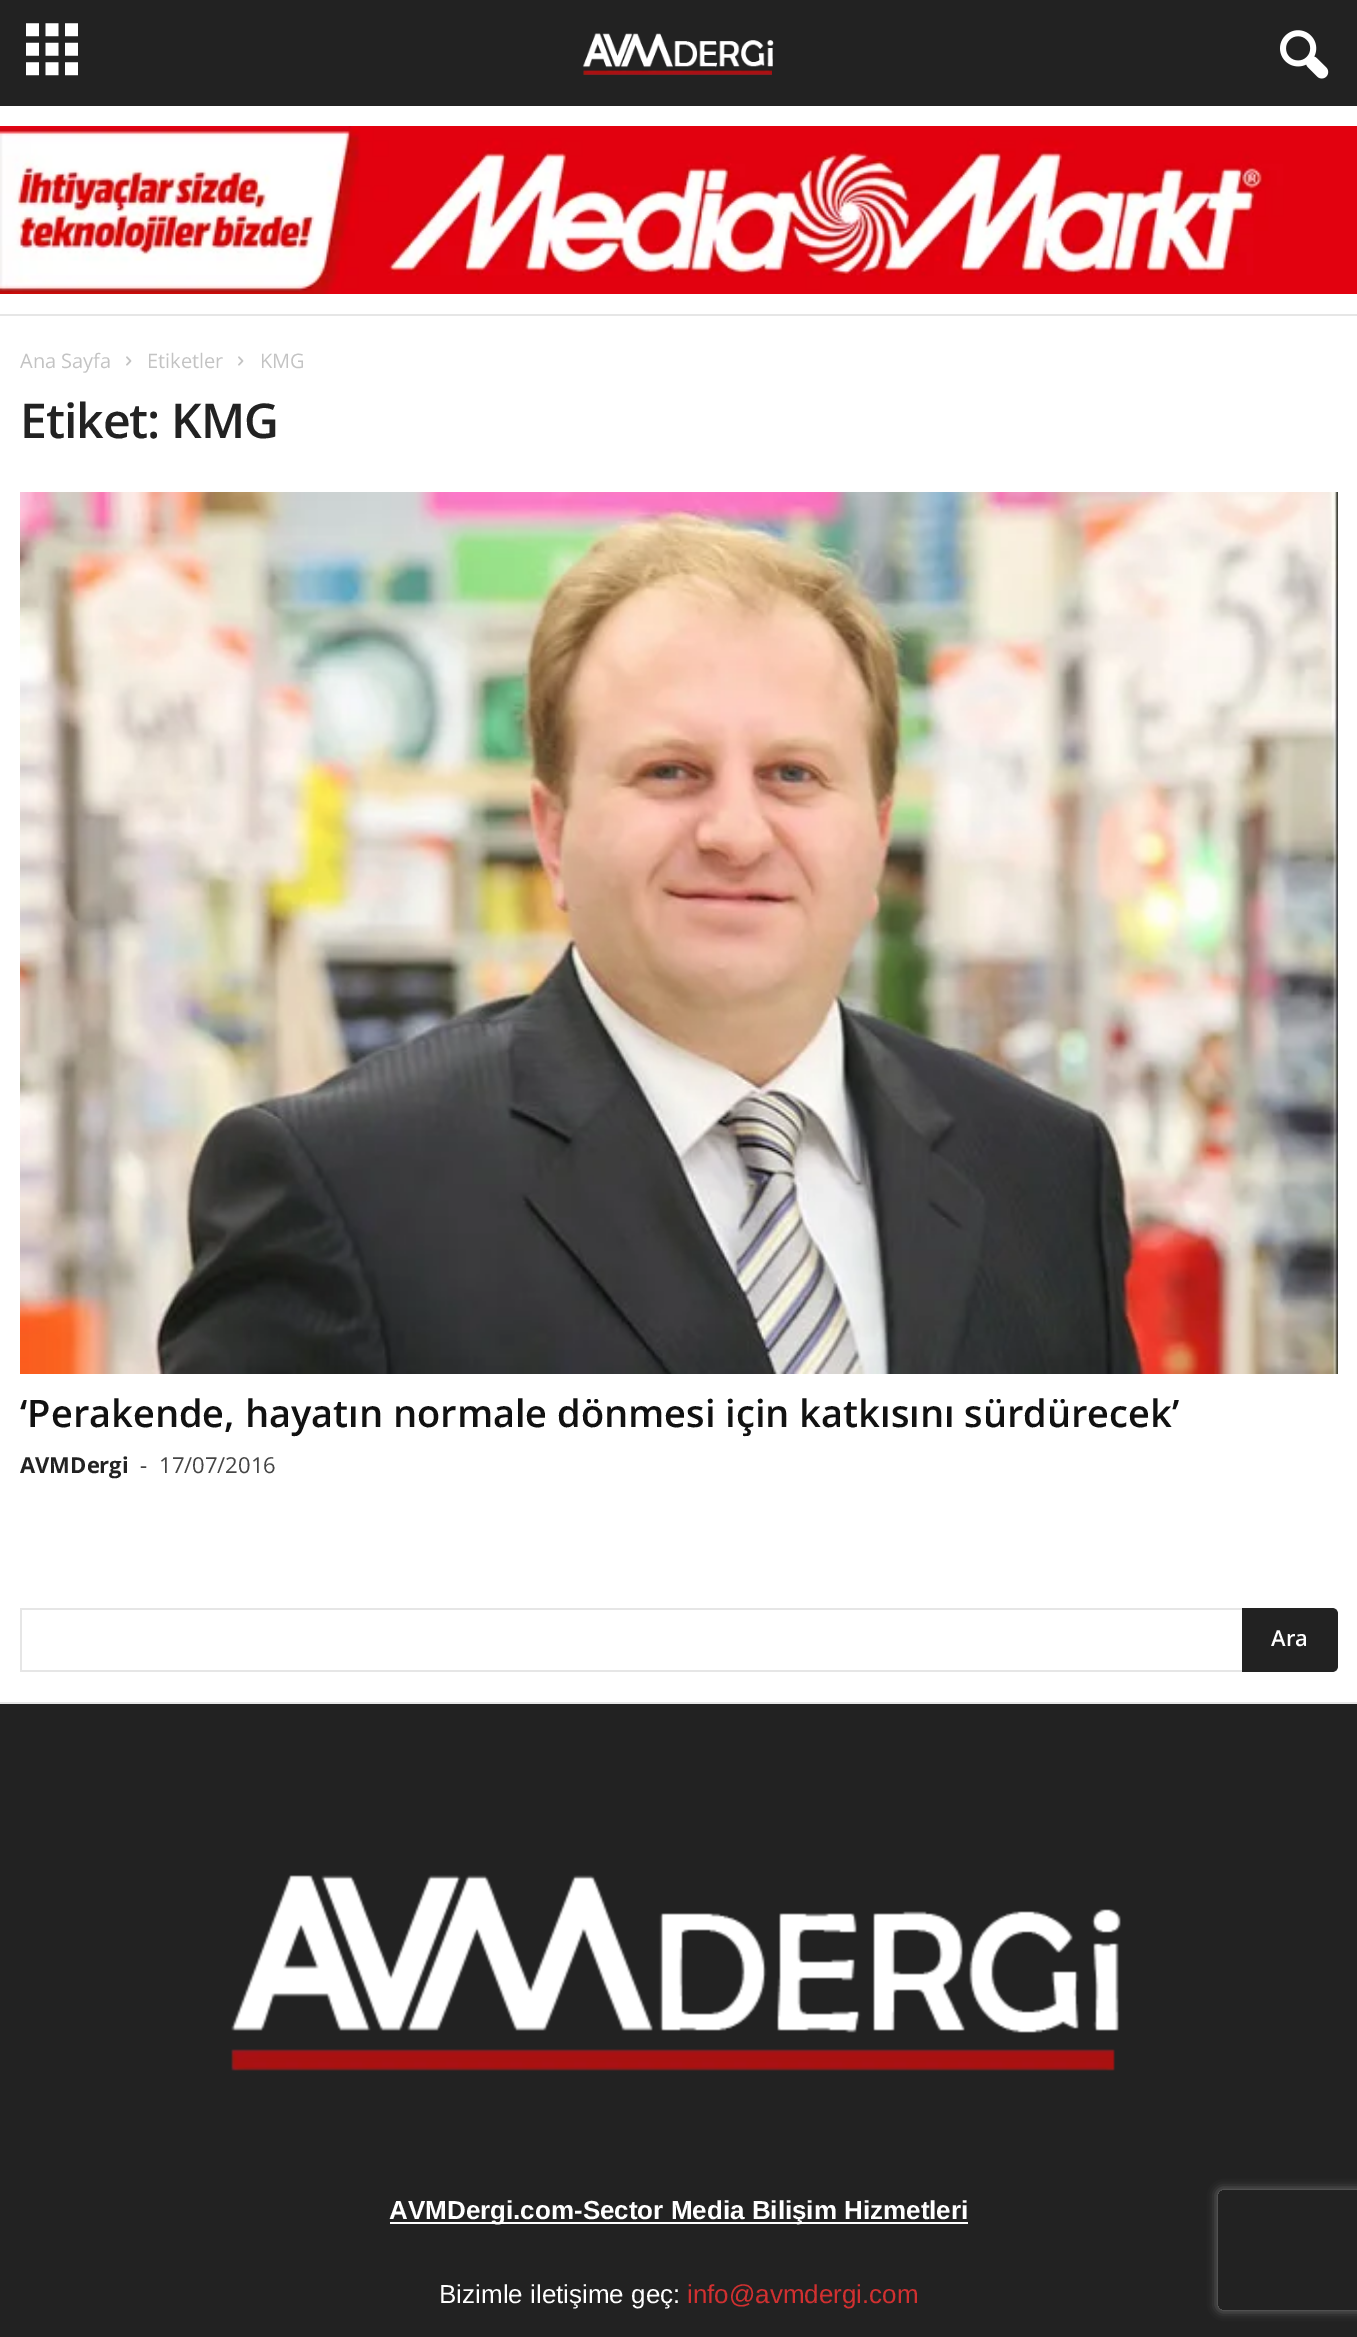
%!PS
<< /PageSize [1357 2337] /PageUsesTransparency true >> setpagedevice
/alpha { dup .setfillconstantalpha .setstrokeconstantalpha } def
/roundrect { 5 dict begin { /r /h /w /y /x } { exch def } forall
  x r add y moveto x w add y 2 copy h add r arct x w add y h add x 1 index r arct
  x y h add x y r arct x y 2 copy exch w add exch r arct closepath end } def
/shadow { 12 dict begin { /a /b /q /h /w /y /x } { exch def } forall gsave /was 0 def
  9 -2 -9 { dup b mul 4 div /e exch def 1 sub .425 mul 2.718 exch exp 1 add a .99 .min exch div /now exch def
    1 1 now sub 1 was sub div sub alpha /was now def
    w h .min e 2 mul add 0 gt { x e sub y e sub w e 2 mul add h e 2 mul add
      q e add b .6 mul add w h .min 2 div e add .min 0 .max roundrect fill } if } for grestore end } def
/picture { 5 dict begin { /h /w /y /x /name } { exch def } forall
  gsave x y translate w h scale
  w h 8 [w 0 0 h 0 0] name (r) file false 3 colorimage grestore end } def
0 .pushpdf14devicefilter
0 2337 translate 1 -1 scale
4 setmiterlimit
1 setgray
0 0 1357 2337 rectfill
0.133 setgray
0 0 1357 106 rectfill
(img1.rgb) 26 23 52 53 picture
(img2.rgb) 582 33 192 42 picture
(img3.rgb) 1280 30 49 49 picture
0.902 setgray
0 314 1357 2 rectfill
(img4.rgb) 0 126 1357 168 picture
0 1702 1357 2 rectfill
/OpenSans-Regular [20 0 0 -20 0 0] selectfont
0.765 setgray
20 368 moveto (Ana Sayfa) show
(img5.rgb) 126 356 6 10 picture
147 368 moveto (Etiketler) show
(img5.rgb) 238 356 6 10 picture
260 368 moveto (KMG) show
/OpenSans-SemiBold [48 0 0 -48 0 0] selectfont
0.133 setgray
20 438 moveto -1 0 (Etiket: KMG) ashow
(img6.rgb) 20 492 1318 882 picture
/OpenSans-SemiBold [38 0 0 -38 0 0] selectfont
0.067 setgray
20 1427 moveto (‘Perakende, hayatın normale dönmesi için katkısını sürdürecek’) show
/OpenSans-Bold [22 0 0 -22 0 0] selectfont
0.133 setgray
20 1473 moveto (AVMDergi) show
/OpenSans-Regular [22 0 0 -22 0 0] selectfont
0.267 setgray
140 1473 moveto (-) show
159 1473 moveto (17/07/2016) show
0.902 setgray
20 1608 1222 2 rectfill
20 1670 1222 2 rectfill
20 1608 2 64 rectfill
0.133 setgray
newpath 1242 1608 moveto 1332 1608 lineto 1335.5 1608 1338 1610.5 1338 1614 curveto 1338 1666 lineto 1338 1669.5 1335.5 1672 1332 1672 curveto 1242 1672 lineto closepath fill
/OpenSans-SemiBold [22 0 0 -22 0 0] selectfont
1 setgray
1271 1646 moveto (Ara) show
0.133 setgray
0 1704 1357 633 rectfill
(img7.rgb) 231 1875 890 196 picture
1 setgray
390 2222 578 2 rectfill
/LiberationSans-Bold [26 0 0 -26 0 0] selectfont
389 2219 moveto (AVMDergi.com-Sector Media Bilişim Hizmetleri) show
/LiberationSans-Regular [26 0 0 -26 0 0] selectfont
439 2303 moveto (Bizimle iletişime geç:) show
0.82 0.188 0.188 setrgbcolor
687 2303 moveto (info@avmdergi.com) show
gsave
newpath 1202 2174 moveto 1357 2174 lineto 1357 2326 lineto 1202 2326 lineto closepath 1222 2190 moveto 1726 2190 lineto 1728 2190 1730 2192 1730 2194 curveto 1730 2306 lineto 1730 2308 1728 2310 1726 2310 curveto 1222 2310 lineto 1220 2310 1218 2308 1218 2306 curveto 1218 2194 lineto 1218 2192 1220 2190 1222 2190 curveto closepath eoclip newpath
0.502 setgray
1218 2190 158 120 4 5 1 shadow
grestore
.poppdf14devicefilter showpage
